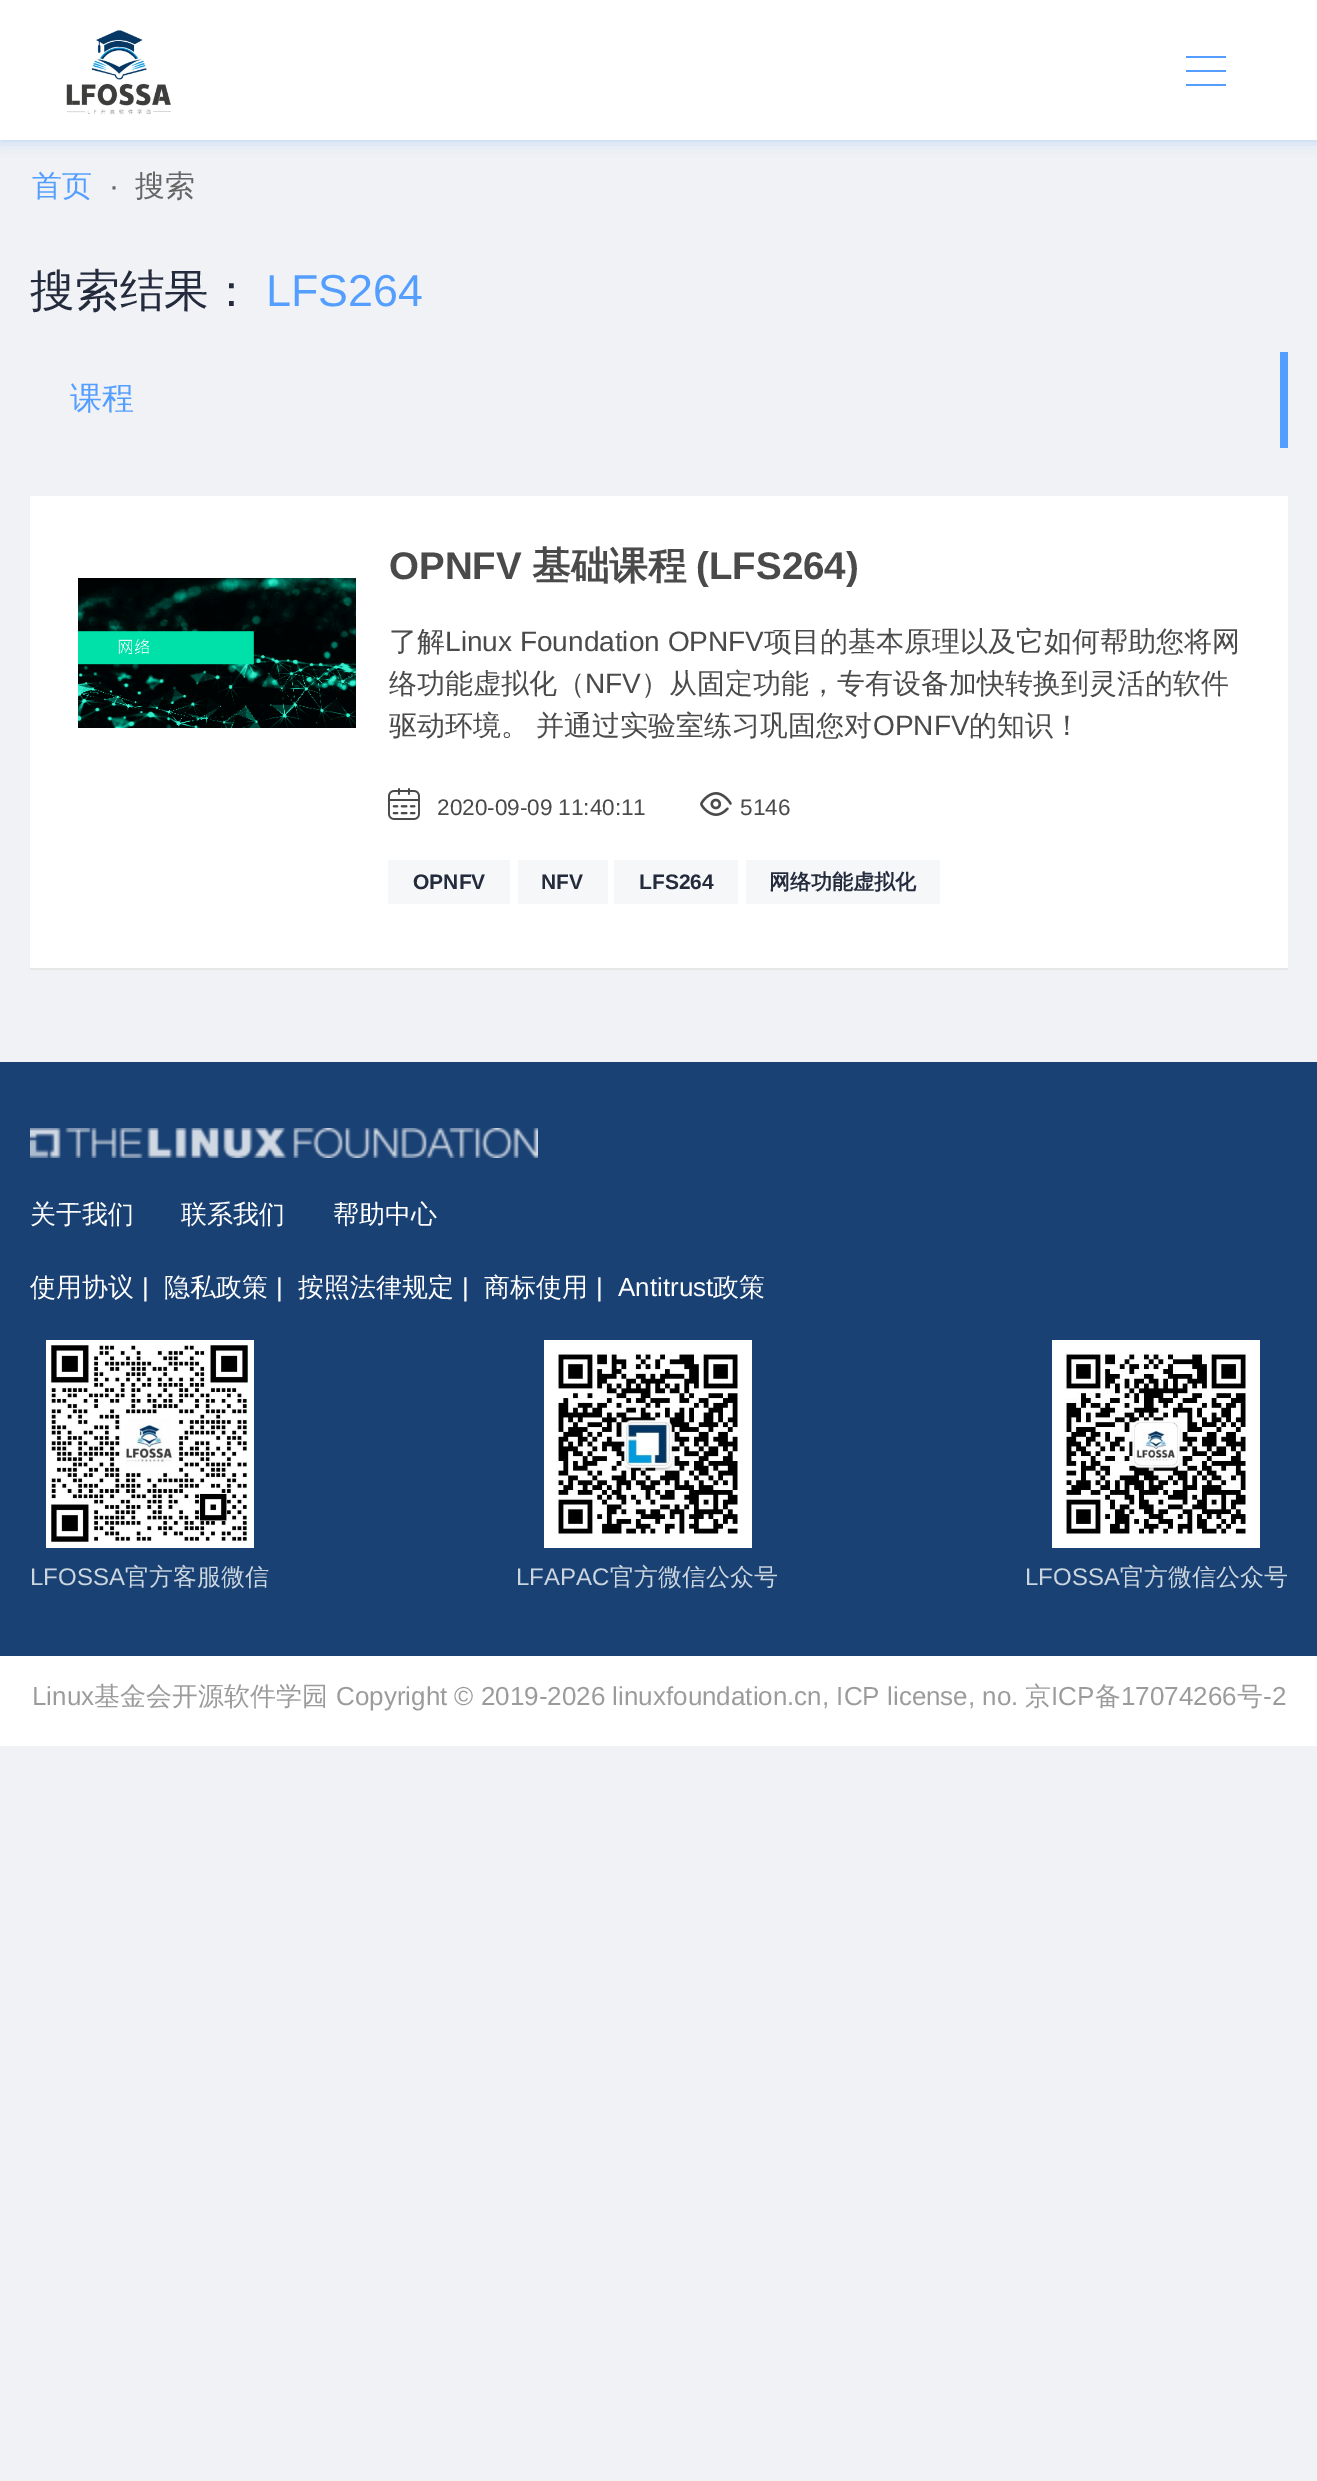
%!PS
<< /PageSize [1317 2481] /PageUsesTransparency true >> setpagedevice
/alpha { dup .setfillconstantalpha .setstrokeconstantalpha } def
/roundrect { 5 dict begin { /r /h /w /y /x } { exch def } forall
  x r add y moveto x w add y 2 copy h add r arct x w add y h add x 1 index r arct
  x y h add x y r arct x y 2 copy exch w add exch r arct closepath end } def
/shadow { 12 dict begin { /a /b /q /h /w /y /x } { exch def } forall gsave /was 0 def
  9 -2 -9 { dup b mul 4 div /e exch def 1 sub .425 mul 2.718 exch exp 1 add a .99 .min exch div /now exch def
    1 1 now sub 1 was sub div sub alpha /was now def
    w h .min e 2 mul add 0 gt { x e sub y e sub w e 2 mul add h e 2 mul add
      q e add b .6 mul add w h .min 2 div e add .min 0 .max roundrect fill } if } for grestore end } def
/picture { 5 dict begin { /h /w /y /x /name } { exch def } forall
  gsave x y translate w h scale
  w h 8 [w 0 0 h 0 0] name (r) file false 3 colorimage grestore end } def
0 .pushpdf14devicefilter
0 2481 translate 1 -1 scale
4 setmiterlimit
0.941 0.949 0.961 setrgbcolor
0 0 1317 2481 rectfill
0.165 0.529 1 setrgbcolor
0 0 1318 140 0 8 0.3 shadow
1 setgray
0 0 1317 140 rectfill
(img1.rgb) 66 30 105 85 picture
0.325 0.62 1 setrgbcolor
1186 56 40 2 rectfill
1186 70 40 2 rectfill
1186 84 40 2 rectfill
/WenQuanYiZenHei-Medium [30 0 0 -30 0 0] selectfont
32 196 moveto (首页) show
/LiberationSans-Regular [30 0 0 -30 0 0] selectfont
0.4 setgray
109 196 moveto (·) show
/WenQuanYiZenHei-Medium [30 0 0 -30 0 0] selectfont
135 196 moveto (搜索) show
/WenQuanYiZenHei-Medium [44.75 0 0 -44.75 0 0] selectfont
0.141 0.169 0.235 setrgbcolor
30 306 moveto (搜索结果：) show
/LiberationSans-Regular [44.75 0 0 -44.75 0 0] selectfont
0.325 0.62 1 setrgbcolor
266 306 moveto (LFS264) show
/WenQuanYiZenHei-Medium [32 0 0 -32 0 0] selectfont
70 409 moveto (课程) show
1280 352 8 96 rectfill
1 setgray
30 496 1258 472 rectfill
0.902 setgray
30 968 1258 2 rectfill
(img2.rgb) 78 578 278 150 picture
/LiberationSans-Bold [38.5 0 0 -38.5 0 0] selectfont
0.29 setgray
389 579 moveto (OPNFV) show
/WenQuanYiZenHei-Bold [38.5 0 0 -38.5 0 0] selectfont
532 579 moveto (基础课程) show
/LiberationSans-Bold [38.5 0 0 -38.5 0 0] selectfont
696 579 moveto (\(LFS264\)) show
/WenQuanYiZenHei-Medium [28 0 0 -28 0 0] selectfont
389 651 moveto (了解) show
/LiberationSans-Regular [28 0 0 -28 0 0] selectfont
445 651 moveto (Linux Foundation OPNFV) show
/WenQuanYiZenHei-Medium [28 0 0 -28 0 0] selectfont
764 651 moveto (项目的基本原理以及它如何帮助您将网) show
389 693 moveto (络功能虚拟化（) show
/LiberationSans-Regular [28 0 0 -28 0 0] selectfont
585 693 moveto (NFV) show
/WenQuanYiZenHei-Medium [28 0 0 -28 0 0] selectfont
641 693 moveto (）从固定功能，专有设备加快转换到灵活的软件) show
389 735 moveto -1 0 32 (驱动环境。 并通过实验室练习巩固您对) widthshow
/LiberationSans-Regular [28 0 0 -28 0 0] selectfont
873 735 moveto (OPNFV) show
/WenQuanYiZenHei-Medium [28 0 0 -28 0 0] selectfont
969 735 moveto (的知识！) show
(img3.rgb) 388 788 32 32 picture
/LiberationSans-Regular [22.5 0 0 -22.5 0 0] selectfont
437 815 moveto (2020-09-09 11:40:11) show
(img4.rgb) 700 792 32 24 picture
740 815 moveto (5146) show
0.961 0.969 0.976 setrgbcolor
388 860 122 44 rectfill
/LiberationSans-Bold [21 0 0 -21 0 0] selectfont
0.141 0.169 0.235 setrgbcolor
413 889 moveto (OPNFV) show
0.961 0.969 0.976 setrgbcolor
518 860 90 44 rectfill
0.141 0.169 0.235 setrgbcolor
541 889 moveto (NFV) show
0.961 0.969 0.976 setrgbcolor
614 860 124 44 rectfill
0.141 0.169 0.235 setrgbcolor
639 889 moveto (LFS264) show
0.961 0.969 0.976 setrgbcolor
746 860 194 44 rectfill
/WenQuanYiZenHei-Bold [21 0 0 -21 0 0] selectfont
0.141 0.169 0.235 setrgbcolor
769 889 moveto (网络功能虚拟化) show
0.102 0.255 0.455 setrgbcolor
0 1062 1317 594 rectfill
(img5.rgb) 30 1128 508 30 picture
/WenQuanYiZenHei-Medium [26 0 0 -26 0 0] selectfont
1 setgray
30 1223 moveto (关于我们) show
181 1223 moveto (联系我们) show
333 1223 moveto (帮助中心) show
30 1296 moveto (使用协议) show
/LiberationSans-Regular [26 0 0 -26 0 0] selectfont
142 1296 moveto (|) show
/WenQuanYiZenHei-Medium [26 0 0 -26 0 0] selectfont
164 1296 moveto (隐私政策) show
/LiberationSans-Regular [26 0 0 -26 0 0] selectfont
276 1296 moveto (|) show
/WenQuanYiZenHei-Medium [26 0 0 -26 0 0] selectfont
298 1296 moveto (按照法律规定) show
/LiberationSans-Regular [26 0 0 -26 0 0] selectfont
462 1296 moveto (|) show
/WenQuanYiZenHei-Medium [26 0 0 -26 0 0] selectfont
484 1296 moveto (商标使用) show
/LiberationSans-Regular [26 0 0 -26 0 0] selectfont
596 1296 moveto (|) show
618 1296 moveto (Antitrust) show
/WenQuanYiZenHei-Medium [26 0 0 -26 0 0] selectfont
713 1296 moveto (政策) show
(img6.rgb) 46 1340 208 208 picture
/LiberationSans-Regular [24 0 0 -24 0 0] selectfont
0.796 0.839 0.875 setrgbcolor
30 1585 moveto (LFOSSA) show
/WenQuanYiZenHei-Medium [24 0 0 -24 0 0] selectfont
125 1585 moveto (官方客服微信) show
(img7.rgb) 544 1340 208 208 picture
/LiberationSans-Regular [24 0 0 -24 0 0] selectfont
516 1585 moveto (LFAPAC) show
/WenQuanYiZenHei-Medium [24 0 0 -24 0 0] selectfont
610 1585 moveto (官方微信公众号) show
(img8.rgb) 1052 1340 208 208 picture
/LiberationSans-Regular [24 0 0 -24 0 0] selectfont
1025 1585 moveto (LFOSSA) show
/WenQuanYiZenHei-Medium [24 0 0 -24 0 0] selectfont
1120 1585 moveto (官方微信公众号) show
1 setgray
0 1656 1317 90 rectfill
/LiberationSans-Regular [26 0 0 -26 0 0] selectfont
0.608 setgray
32 1705 moveto (Linux) show
/WenQuanYiZenHei-Medium [26 0 0 -26 0 0] selectfont
94 1705 moveto (基金会开源软件学园) show
/LiberationSans-Regular [26 0 0 -26 0 0] selectfont
336 1705 moveto (Copyright © 2019-2026 linuxfoundation.cn, ICP license, no.) show
/WenQuanYiZenHei-Medium [26 0 0 -26 0 0] selectfont
1025 1705 moveto (京) show
/LiberationSans-Regular [26 0 0 -26 0 0] selectfont
1051 1705 moveto (ICP) show
/WenQuanYiZenHei-Medium [26 0 0 -26 0 0] selectfont
1095 1705 moveto (备) show
/LiberationSans-Regular [26 0 0 -26 0 0] selectfont
1121 1705 moveto (17074266) show
/WenQuanYiZenHei-Medium [26 0 0 -26 0 0] selectfont
1237 1705 moveto (号) show
/LiberationSans-Regular [26 0 0 -26 0 0] selectfont
1263 1705 moveto (-2) show
.poppdf14devicefilter showpage
